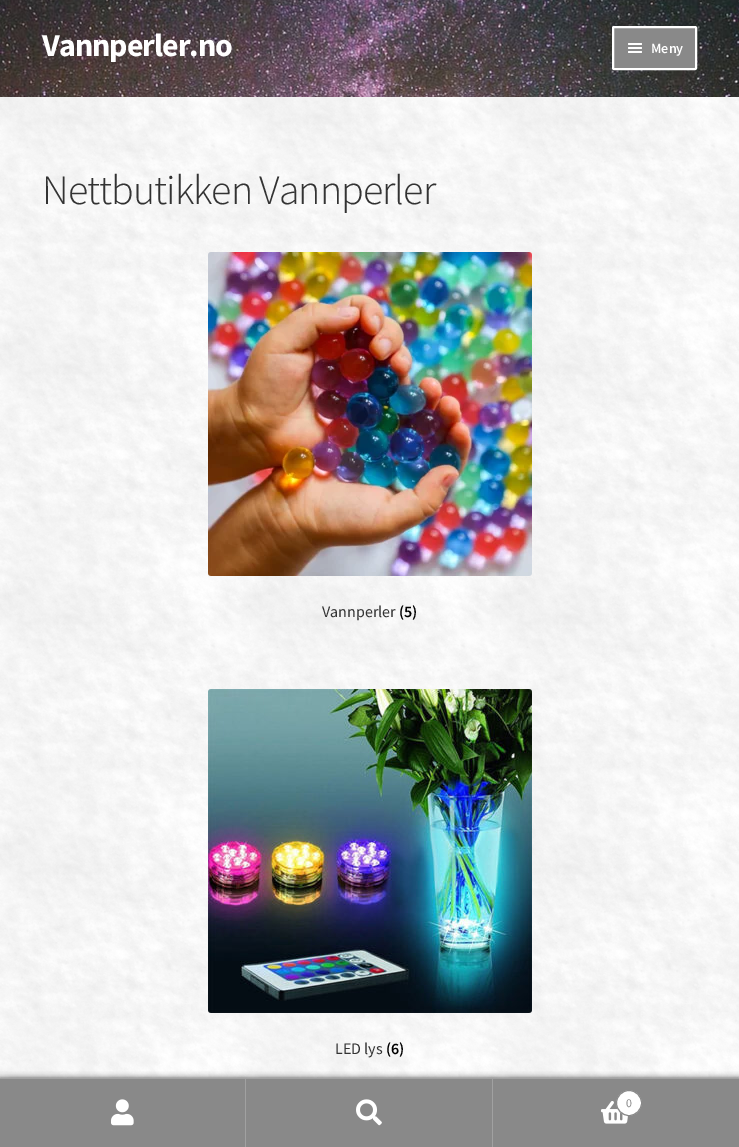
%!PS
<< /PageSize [739 1147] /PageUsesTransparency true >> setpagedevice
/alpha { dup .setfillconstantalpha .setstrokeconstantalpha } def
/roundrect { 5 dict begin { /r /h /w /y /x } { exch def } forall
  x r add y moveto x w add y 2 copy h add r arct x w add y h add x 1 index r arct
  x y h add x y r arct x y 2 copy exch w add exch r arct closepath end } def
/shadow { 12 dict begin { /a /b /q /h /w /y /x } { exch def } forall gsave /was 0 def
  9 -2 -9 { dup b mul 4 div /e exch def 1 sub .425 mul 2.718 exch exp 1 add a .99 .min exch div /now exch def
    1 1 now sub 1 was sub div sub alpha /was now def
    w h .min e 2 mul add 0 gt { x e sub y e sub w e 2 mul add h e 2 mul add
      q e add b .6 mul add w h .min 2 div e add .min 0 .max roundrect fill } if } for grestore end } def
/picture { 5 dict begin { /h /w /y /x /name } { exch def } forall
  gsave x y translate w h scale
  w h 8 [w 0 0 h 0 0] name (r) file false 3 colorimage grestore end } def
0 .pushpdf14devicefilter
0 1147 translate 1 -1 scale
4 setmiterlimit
1 setgray
0 0 739 1147 rectfill
(img1.rgb) 0 97 739 981 picture
(img2.rgb) 0 0 739 97 picture
/SourceSansPro-Bold [32 0 0 -32 0 0] selectfont
42 56 moveto -1 0 (Vannperler.no) ashow
0.537 setgray
613 27 83 42 1 roundrect gsave fill grestore
1 setgray
2 setlinewidth
stroke
628 43 14 2 1 roundrect fill
628 47 14 2 1 roundrect fill
/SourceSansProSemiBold-SemiBold [14 0 0 -14 0 0] selectfont
651 53 moveto (Meny) show
628 51 14 2 1 roundrect fill
/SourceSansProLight-Light [41.9 0 0 -41.9 0 0] selectfont
0.2 setgray
42 204 moveto -1 0 (Nettbutikken Vannperler) ashow
(img3.rgb) 208 252 324 324 picture
/SourceSansPro-Regular [16 0 0 -16 0 0] selectfont
322 617 moveto (Vannperler) show
/SourceSansProSemiBold-SemiBold [16 0 0 -16 0 0] selectfont
0 setgray
399 617 moveto (\(5\)) show
(img4.rgb) 208 689 324 324 picture
/SourceSansPro-Regular [16 0 0 -16 0 0] selectfont
0.2 setgray
335 1054 moveto (LED lys) show
/SourceSansProSemiBold-SemiBold [16 0 0 -16 0 0] selectfont
0 setgray
386 1054 moveto (\(6\)) show
0 1078 739 69 0 3 0.7 shadow
0.631 setgray
0 1078 739 1 rectfill
0.537 setgray
0 1079 245 68 rectfill
0.631 setgray
245 1079 1 68 rectfill
(img5.rgb) 111 1099 23 27 picture
0.537 setgray
246 1079 246 68 rectfill
0.631 setgray
492 1079 1 68 rectfill
(img6.rgb) 356 1099 26 27 picture
0.537 setgray
493 1079 246 68 rectfill
(img7.rgb) 601 1101 28 23 picture
1 setgray
newpath 629 1103 12.5 0 360 arc closepath gsave fill grestore
0.537 setgray
1 setlinewidth
stroke
/SourceSansPro-Regular [12 0 0 -12 0 0] selectfont
626 1107 moveto (0) show
.poppdf14devicefilter showpage
